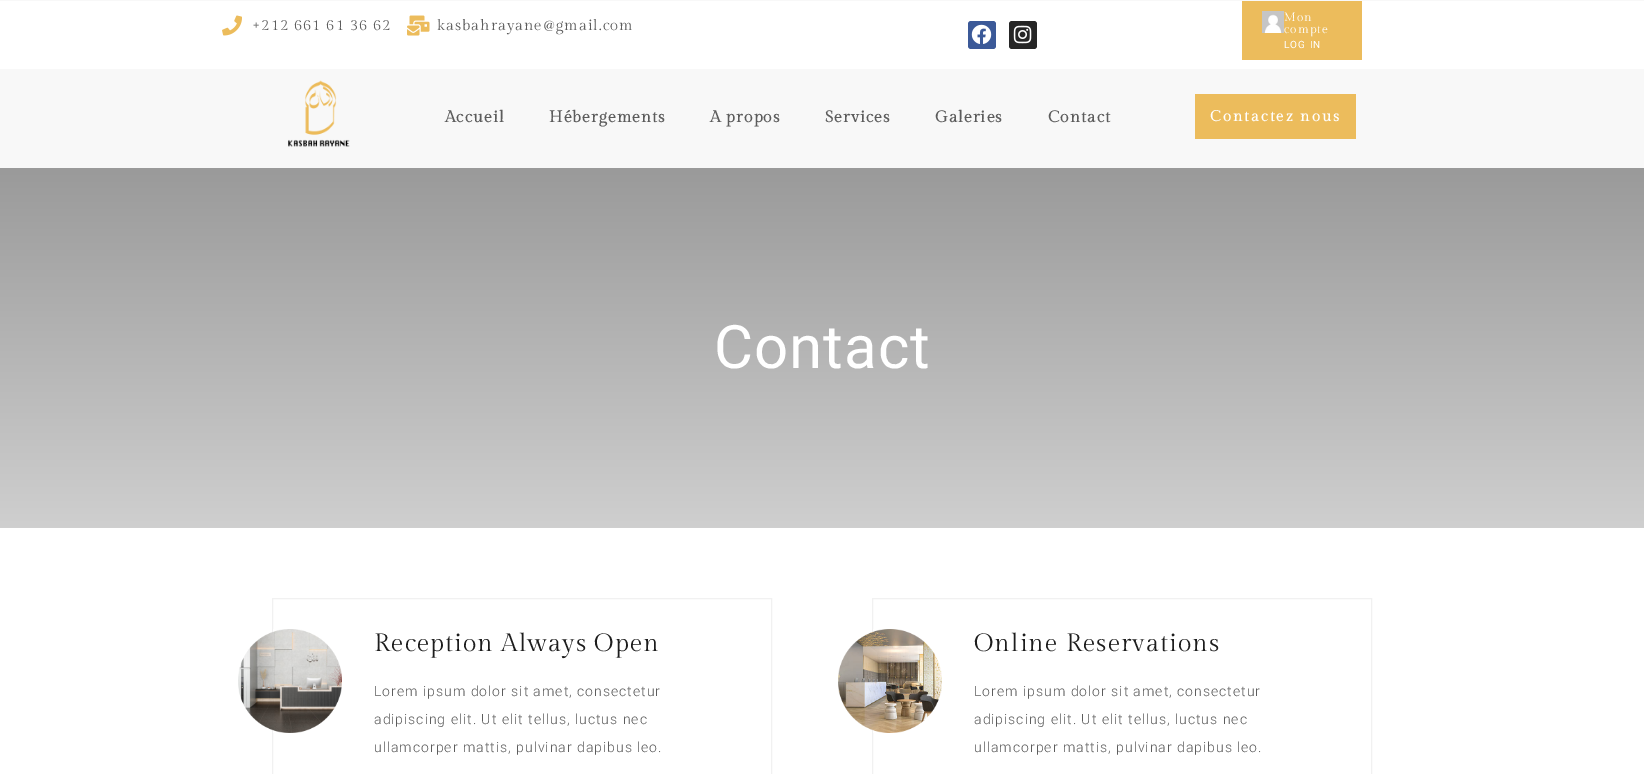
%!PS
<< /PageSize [1644 774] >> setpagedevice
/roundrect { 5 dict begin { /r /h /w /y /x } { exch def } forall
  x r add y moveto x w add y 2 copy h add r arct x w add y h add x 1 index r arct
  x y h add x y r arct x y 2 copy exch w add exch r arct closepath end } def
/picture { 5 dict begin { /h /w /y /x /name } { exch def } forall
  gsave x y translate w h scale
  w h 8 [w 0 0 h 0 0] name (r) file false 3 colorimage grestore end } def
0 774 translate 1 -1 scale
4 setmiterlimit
1 setgray
0 0 1644 774 rectfill
0.973 setgray
0 0 1644 1 rectfill
(img1.rgb) 222 15 20 21 picture
/GildaDisplay-Regular [15 0 0 -15 0 0] selectfont
0.361 setgray
252 30 moveto 1 0 (+212 661 61 36 62) ashow
(img2.rgb) 407 15 23 21 picture
437 30 moveto 1 0 (kasbahrayane@gmail.com) ashow
0.231 0.349 0.596 setrgbcolor
968 21 28 28 3 roundrect fill
(img3.rgb) 971 24 21 20 picture
0.149 setgray
1009 21 28 28 3 roundrect fill
(img4.rgb) 1013 25 19 19 picture
0.925 0.737 0.361 setrgbcolor
1242 1 120 59 rectfill
(img5.rgb) 1262 11 22 22 picture
/GildaDisplay-Regular [12 0 0 -12 0 0] selectfont
1 setgray
1284 21 moveto 1 0 (Mon) ashow
1284 33 moveto 1 0 (compte) ashow
/Roboto-Regular [10 0 0 -10 0 0] selectfont
1284 48 moveto 1 0 (LOG IN) ashow
0.973 setgray
0 69 1644 99 rectfill
(img6.rgb) 288 80 62 67 picture
/GildaDisplay-Bold [16 0 0 -16 0 0] selectfont
0.361 setgray
445 122 moveto 1 0 (Accueil) ashow
549 122 moveto 1 0 (Hébergements) ashow
710 122 moveto 1 0 (A propos) ashow
825 122 moveto 1 0 (Services) ashow
935 122 moveto 1 0 (Galeries) ashow
1048 122 moveto 1 0 (Contact) ashow
0.925 0.737 0.361 setrgbcolor
1195 94 161 45 rectfill
/GildaDisplay-Bold [15 0 0 -15 0 0] selectfont
1 setgray
1210 121 moveto 2 0 (Contactez nous) ashow
gsave newpath 0 168 moveto 1644 168 lineto 1644 528 lineto 0 528 lineto closepath clip newpath
<< /ShadingType 2 /ColorSpace /DeviceRGB /Coords [822 168 822 528] /Extend [true true] /Function << /FunctionType 2 /Domain [0 1] /C0 [0.604 0.604 0.604] /C1 [0.812 0.812 0.812] /N 1 >> >> shfill grestore
/Roboto-Regular [60 0 0 -60 0 0] selectfont
714 368 moveto 1 0 (Contact) ashow
0.945 setgray
272.5 598.5 499 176 rectstroke
(img7.rgb) 238 629 104 104 picture
/GildaDisplay-Regular [25 0 0 -25 0 0] selectfont
0.114 setgray
374 651 moveto 1 0 (Reception Always Open) ashow
/Roboto-Light [14 0 0 -14 0 0] selectfont
0.361 setgray
374 696 moveto 1 0 (Lorem ipsum dolor sit amet, consectetur) ashow
374 724 moveto 1 0 (adipiscing elit. Ut elit tellus, luctus nec) ashow
374 752 moveto 1 0 (ullamcorper mattis, pulvinar dapibus leo.) ashow
0.945 setgray
872.5 598.5 499 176 rectstroke
(img8.rgb) 838 629 104 104 picture
/GildaDisplay-Regular [25 0 0 -25 0 0] selectfont
0.114 setgray
974 651 moveto 1 0 (Online Reservations) ashow
/Roboto-Light [14 0 0 -14 0 0] selectfont
0.361 setgray
974 696 moveto 1 0 (Lorem ipsum dolor sit amet, consectetur) ashow
974 724 moveto 1 0 (adipiscing elit. Ut elit tellus, luctus nec) ashow
974 752 moveto 1 0 (ullamcorper mattis, pulvinar dapibus leo.) ashow
showpage
